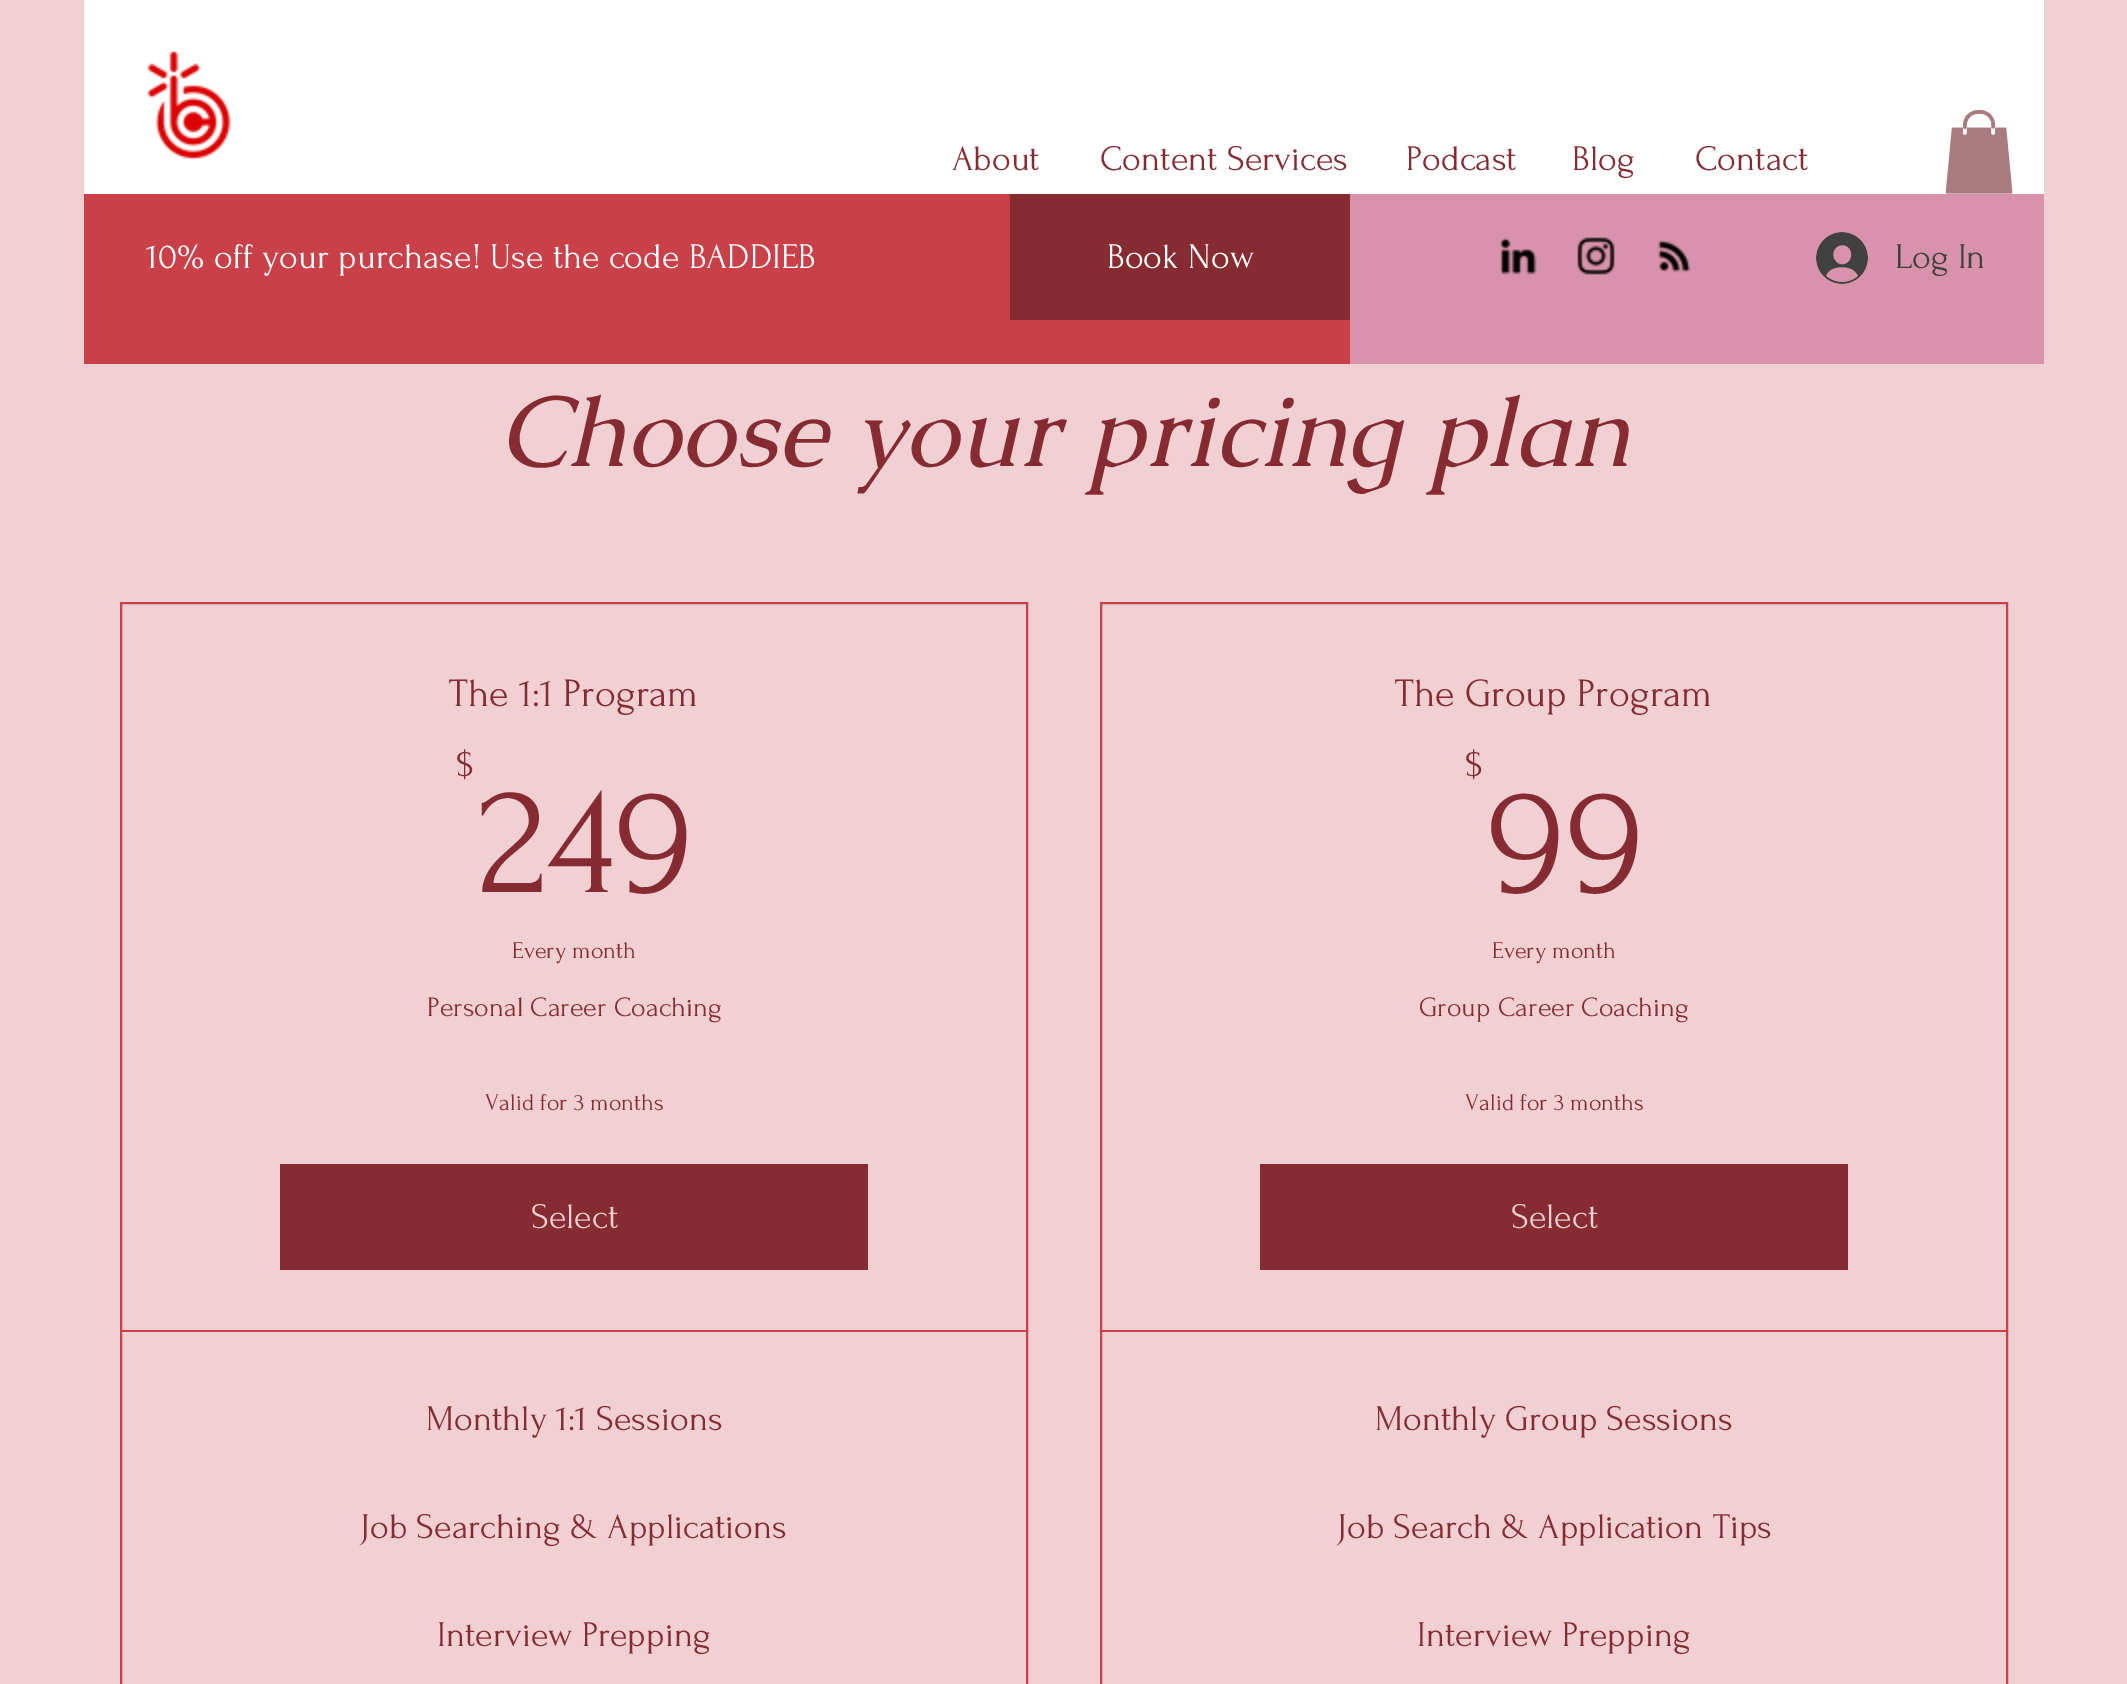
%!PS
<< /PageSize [2127 1684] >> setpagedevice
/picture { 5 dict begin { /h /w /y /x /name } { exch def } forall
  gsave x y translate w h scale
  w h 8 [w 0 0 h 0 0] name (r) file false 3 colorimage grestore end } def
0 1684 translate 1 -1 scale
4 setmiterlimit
0.941 0.816 0.827 setrgbcolor
0 0 2127 1684 rectfill
1 setgray
84 0 1960 194 rectfill
(img1.rgb) 147 50 84 110 picture
/Forum-Regular [36 0 0 -36 0 0] selectfont
0.525 0.169 0.192 setrgbcolor
952 170 moveto (About) show
1100 170 moveto (Content Services) show
1406 170 moveto (Podcast) show
1572 170 moveto (Blog) show
1695 170 moveto (Contact) show
(img2.rgb) 1945 110 68 84 picture
0.851 0.573 0.675 setrgbcolor
1350 194 694 170 rectfill
0.788 0.251 0.286 setrgbcolor
84 194 1266 170 rectfill
1 setgray
146 268 moveto (10% off your purchase! Use the code BADDIEB) show
0.525 0.169 0.192 setrgbcolor
1010 194 340 126 rectfill
1 setgray
1107 268 moveto (Book Now) show
(img3.rgb) 1499 237 38 38 picture
(img4.rgb) 1577 237 38 38 picture
(img5.rgb) 1657 240 34 33 picture
(img6.rgb) 1816 232 52 52 picture
0.255 setgray
1895 268 moveto (Log In) show
/Caudex-Italic [100 0 0 -100 0 0] selectfont
0.525 0.169 0.192 setrgbcolor
499 466 moveto (Choose your pricing plan) show
0.788 0.251 0.286 setrgbcolor
2 setlinewidth
121 603 906 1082 rectstroke
/Forum-Regular [40 0 0 -40 0 0] selectfont
0.525 0.169 0.192 setrgbcolor
449 706 moveto (The 1:1 Program) show
/Forum-Regular [36 0 0 -36 0 0] selectfont
456 776 moveto ($) show
/Forum-Regular [160 0 0 -160 0 0] selectfont
478 892 moveto (249) show
/Forum-Regular [24 0 0 -24 0 0] selectfont
512 958 moveto (Every month) show
/Forum-Regular [28 0 0 -28 0 0] selectfont
427 1016 moveto (Personal Career Coaching) show
/Forum-Regular [24 0 0 -24 0 0] selectfont
485 1110 moveto (Valid for 3 months) show
280 1164 588 106 rectfill
/Forum-Regular [36 0 0 -36 0 0] selectfont
0.941 0.816 0.827 setrgbcolor
531 1228 moveto (Select) show
0.788 0.251 0.286 setrgbcolor
122 1330 904 2 rectfill
0.525 0.169 0.192 setrgbcolor
426 1430 moveto (Monthly 1:1 Sessions) show
360 1538 moveto (Job Searching & Applications) show
437 1646 moveto (Interview Prepping) show
0.788 0.251 0.286 setrgbcolor
1101 603 906 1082 rectstroke
/Forum-Regular [40 0 0 -40 0 0] selectfont
0.525 0.169 0.192 setrgbcolor
1395 706 moveto (The Group Program) show
/Forum-Regular [36 0 0 -36 0 0] selectfont
1465 776 moveto ($) show
/Forum-Regular [160 0 0 -160 0 0] selectfont
1486 892 moveto (99) show
/Forum-Regular [24 0 0 -24 0 0] selectfont
1492 958 moveto (Every month) show
/Forum-Regular [28 0 0 -28 0 0] selectfont
1419 1016 moveto (Group Career Coaching) show
/Forum-Regular [24 0 0 -24 0 0] selectfont
1465 1110 moveto (Valid for 3 months) show
1260 1164 588 106 rectfill
/Forum-Regular [36 0 0 -36 0 0] selectfont
0.941 0.816 0.827 setrgbcolor
1511 1228 moveto (Select) show
0.788 0.251 0.286 setrgbcolor
1102 1330 904 2 rectfill
0.525 0.169 0.192 setrgbcolor
1375 1430 moveto (Monthly Group Sessions) show
1337 1538 moveto (Job Search & Application Tips) show
1417 1646 moveto (Interview Prepping) show
showpage
